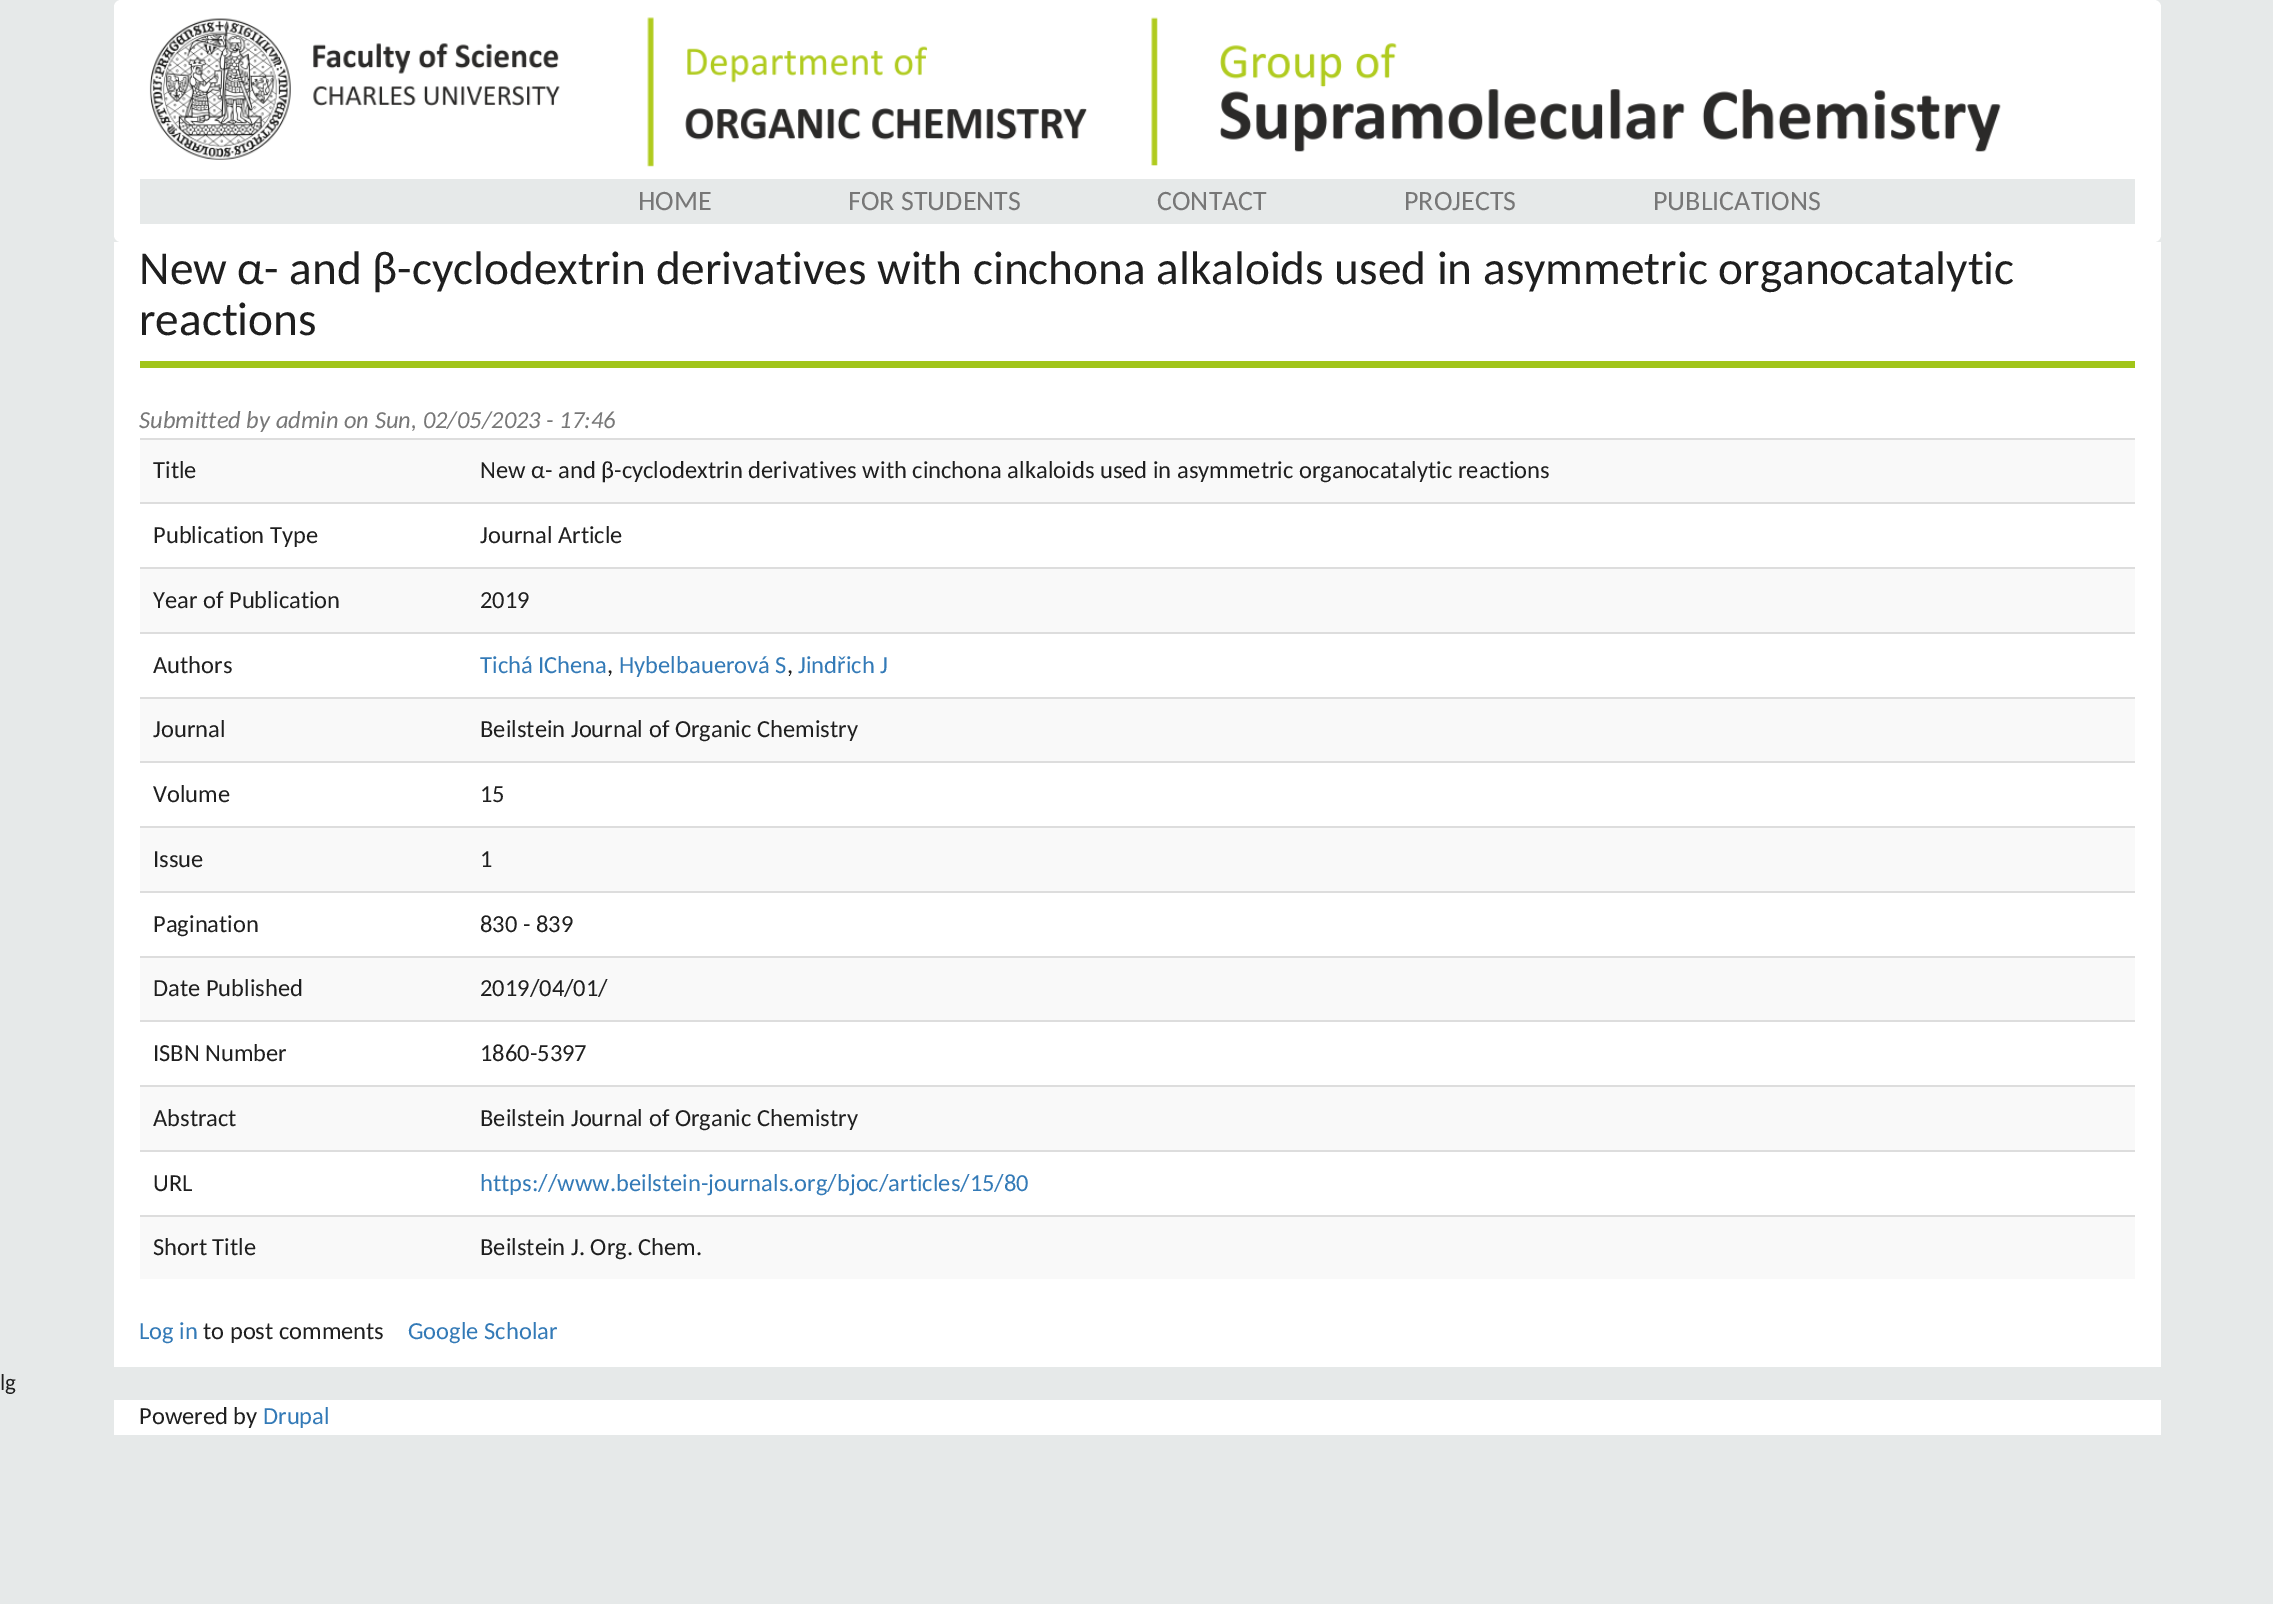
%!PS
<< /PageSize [2273 1604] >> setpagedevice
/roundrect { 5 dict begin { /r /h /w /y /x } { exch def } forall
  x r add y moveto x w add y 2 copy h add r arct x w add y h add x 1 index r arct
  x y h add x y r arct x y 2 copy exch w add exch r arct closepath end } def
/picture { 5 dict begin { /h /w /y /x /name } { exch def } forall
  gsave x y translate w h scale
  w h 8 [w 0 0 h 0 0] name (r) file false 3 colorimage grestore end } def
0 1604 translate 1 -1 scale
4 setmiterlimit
0.902 0.914 0.914 setrgbcolor
0 0 2273 1604 rectfill
1 setgray
114 0 2047 242 7 roundrect fill
(img1.rgb) 149 18 411 142 picture
(img2.rgb) 647 17 440 150 picture
(img3.rgb) 1151 17 850 149 picture
0.902 0.914 0.914 setrgbcolor
140 179 1995 45 rectfill
/Carlito-Regular [28 0 0 -28 0 0] selectfont
0.467 setgray
638 210 moveto (HOME) show
848 210 moveto (FOR STUDENTS) show
1157 210 moveto (CONTACT) show
1404 210 moveto (PROJECTS) show
1653 210 moveto (PUBLICATIONS) show
1 setgray
114 242 2047 1125 rectfill
0.631 0.773 0.098 setrgbcolor
140 361 1995 7 rectfill
/Carlito-Regular [47.25 0 0 -47.25 0 0] selectfont
0.122 setgray
139 284 moveto (New α- and β-cyclodextrin derivatives with cinchona alkaloids used in asymmetric organocatalytic) show
139 335 moveto (reactions) show
/Carlito-Italic [24.5 0 0 -24.5 0 0] selectfont
0.467 setgray
139 428 moveto (Submitted by admin on Sun, 02/05/2023 - 17:46) show
0.976 setgray
140 440 1995 62 rectfill
/Carlito-Regular [24.5 0 0 -24.5 0 0] selectfont
0.122 setgray
153 478 moveto (Title) show
0.867 setgray
140 438 1995 2 rectfill
0.122 setgray
480 478 moveto (New α- and β-cyclodextrin derivatives with cinchona alkaloids used in asymmetric organocatalytic reactions) show
153 543 moveto (Publication Type) show
0.867 setgray
140 502 1995 2 rectfill
0.122 setgray
480 543 moveto (Journal Article) show
0.976 setgray
140 569 1995 63 rectfill
0.122 setgray
153 608 moveto (Year of Publication) show
0.867 setgray
140 567 1995 2 rectfill
0.122 setgray
480 608 moveto (2019) show
153 673 moveto (Authors) show
0.867 setgray
140 632 1995 2 rectfill
0.2 0.478 0.718 setrgbcolor
480 673 moveto (Tichá IChena) show
0.122 setgray
607 673 moveto (,) show
0.2 0.478 0.718 setrgbcolor
619 673 moveto (Hybelbauerová S) show
0.122 setgray
787 673 moveto (,) show
0.2 0.478 0.718 setrgbcolor
798 673 moveto (Jindřich J) show
0.976 setgray
140 699 1995 62 rectfill
0.122 setgray
153 737 moveto (Journal) show
0.867 setgray
140 697 1995 2 rectfill
0.122 setgray
480 737 moveto (Beilstein Journal of Organic Chemistry) show
153 802 moveto (Volume) show
0.867 setgray
140 761 1995 2 rectfill
0.122 setgray
480 802 moveto (15) show
0.976 setgray
140 828 1995 63 rectfill
0.122 setgray
153 867 moveto (Issue) show
0.867 setgray
140 826 1995 2 rectfill
0.122 setgray
480 867 moveto (1) show
153 932 moveto (Pagination) show
0.867 setgray
140 891 1995 2 rectfill
0.122 setgray
480 932 moveto (830 - 839) show
0.976 setgray
140 958 1995 62 rectfill
0.122 setgray
153 996 moveto (Date Published) show
0.867 setgray
140 956 1995 2 rectfill
0.122 setgray
480 996 moveto (2019/04/01/) show
153 1061 moveto (ISBN Number) show
0.867 setgray
140 1020 1995 2 rectfill
0.122 setgray
480 1061 moveto (1860-5397) show
0.976 setgray
140 1087 1995 63 rectfill
0.122 setgray
153 1126 moveto (Abstract) show
0.867 setgray
140 1085 1995 2 rectfill
0.122 setgray
480 1126 moveto (Beilstein Journal of Organic Chemistry) show
153 1191 moveto (URL) show
0.867 setgray
140 1150 1995 2 rectfill
0.2 0.478 0.718 setrgbcolor
480 1191 moveto (https://www.beilstein-journals.org/bjoc/articles/15/80) show
0.976 setgray
140 1217 1995 62 rectfill
0.122 setgray
153 1255 moveto (Short Title) show
0.867 setgray
140 1215 1995 2 rectfill
0.122 setgray
480 1255 moveto (Beilstein J. Org. Chem.) show
0.2 0.478 0.718 setrgbcolor
139 1339 moveto (Log in) show
0.122 setgray
203 1339 moveto (to post comments) show
0.2 0.478 0.718 setrgbcolor
408 1339 moveto (Google Scholar) show
/Carlito-Regular [23 0 0 -23 0 0] selectfont
0.122 setgray
0 1390 moveto (lg) show
1 setgray
114 1400 2047 35 rectfill
/Carlito-Regular [24.5 0 0 -24.5 0 0] selectfont
0.122 setgray
139 1424 moveto (Powered by) show
0.2 0.478 0.718 setrgbcolor
263 1424 moveto (Drupal) show
showpage
